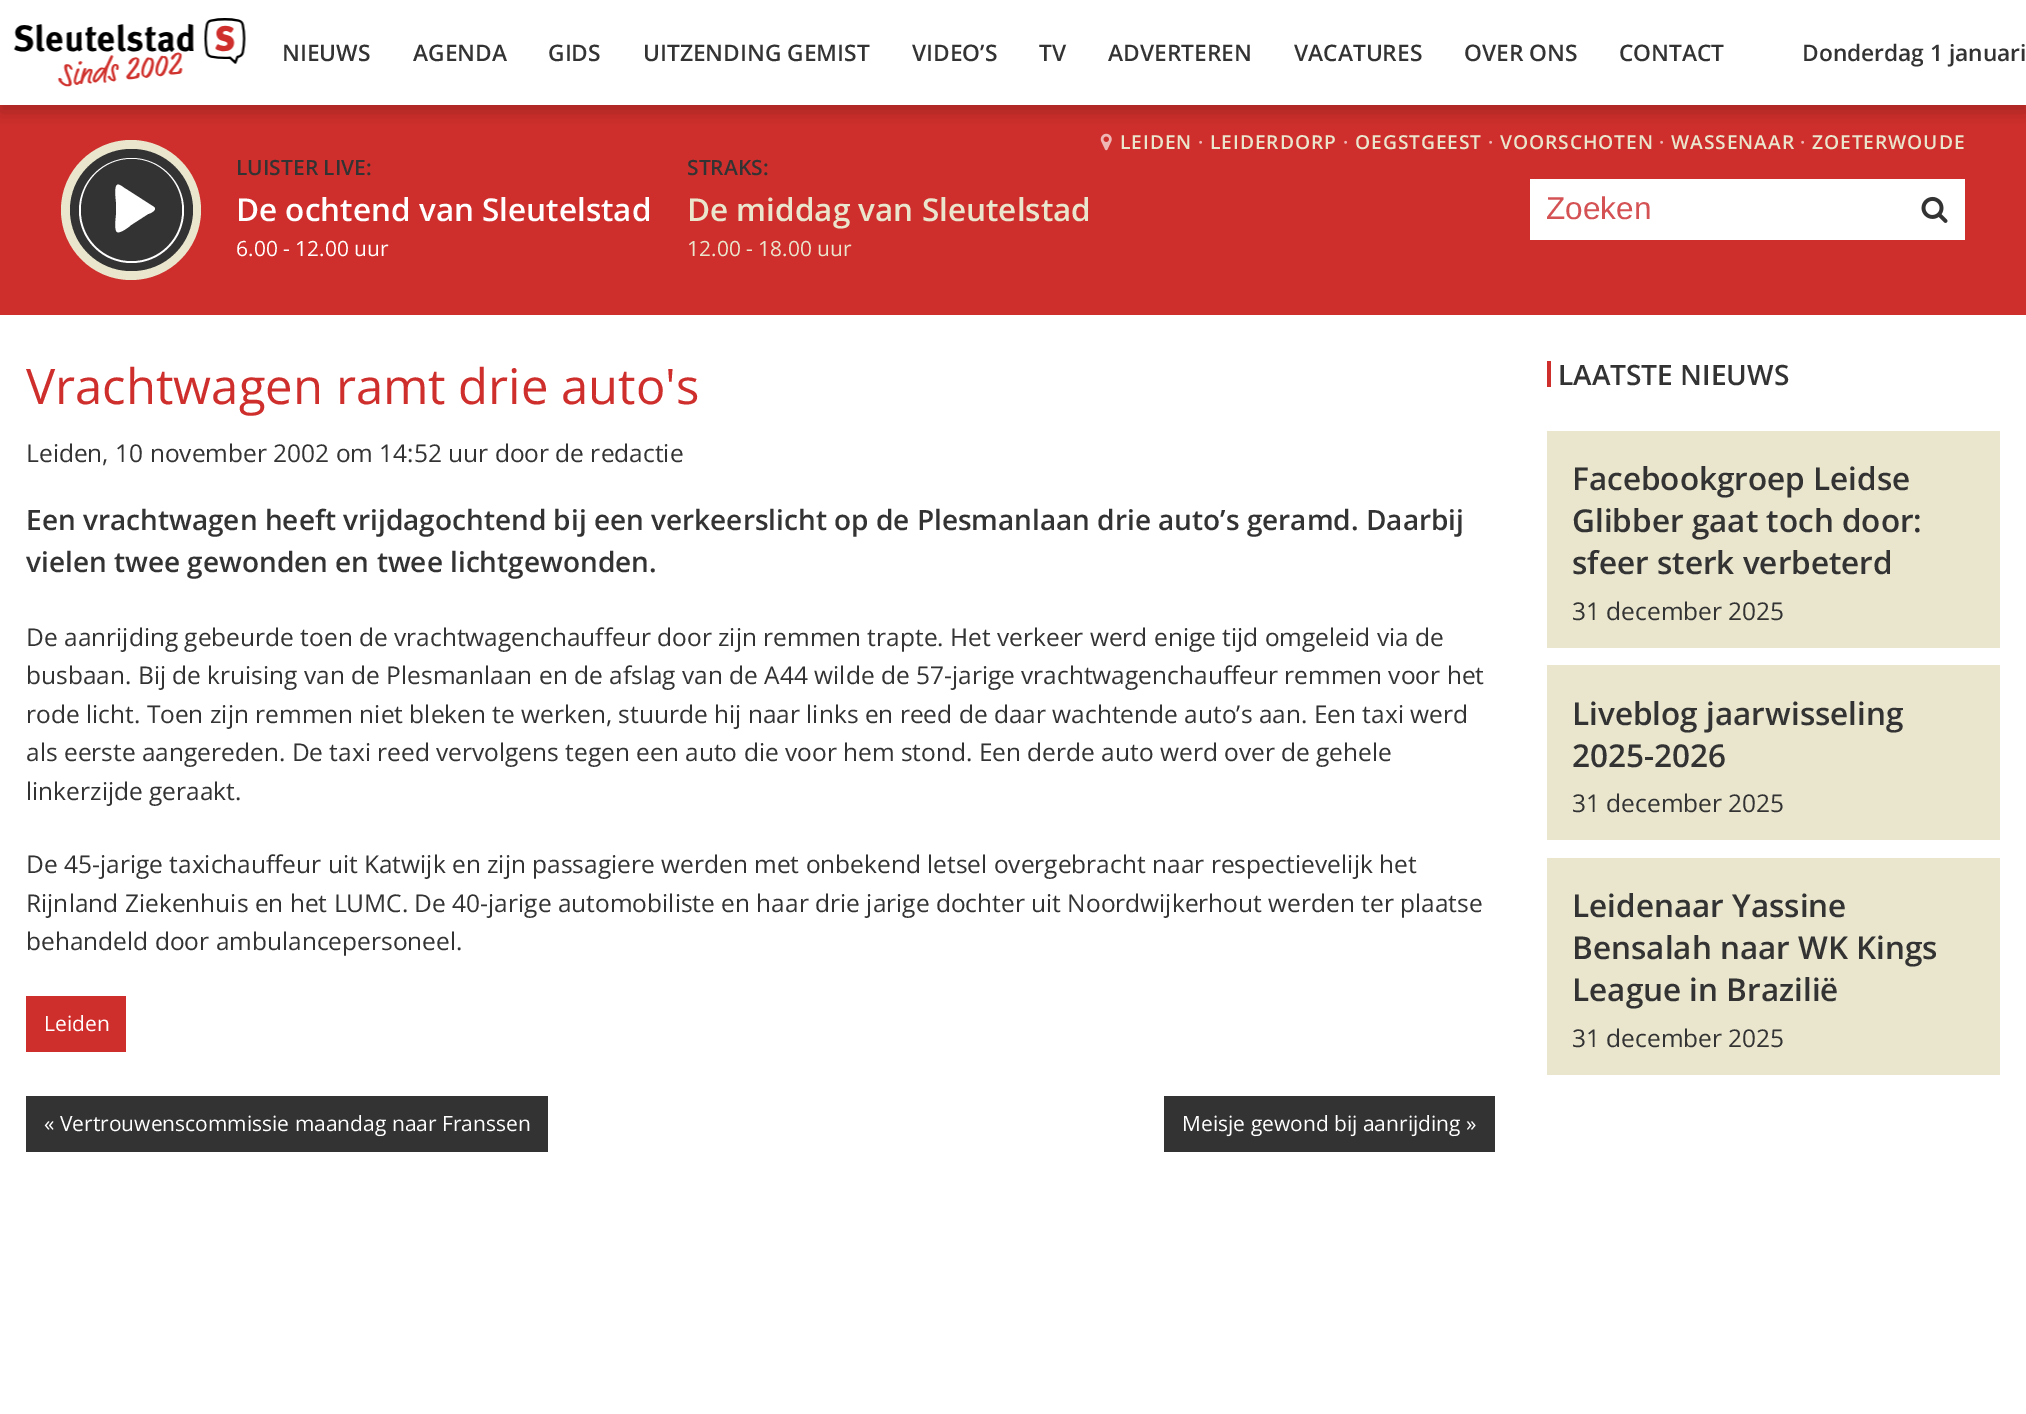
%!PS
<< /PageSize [2026 1414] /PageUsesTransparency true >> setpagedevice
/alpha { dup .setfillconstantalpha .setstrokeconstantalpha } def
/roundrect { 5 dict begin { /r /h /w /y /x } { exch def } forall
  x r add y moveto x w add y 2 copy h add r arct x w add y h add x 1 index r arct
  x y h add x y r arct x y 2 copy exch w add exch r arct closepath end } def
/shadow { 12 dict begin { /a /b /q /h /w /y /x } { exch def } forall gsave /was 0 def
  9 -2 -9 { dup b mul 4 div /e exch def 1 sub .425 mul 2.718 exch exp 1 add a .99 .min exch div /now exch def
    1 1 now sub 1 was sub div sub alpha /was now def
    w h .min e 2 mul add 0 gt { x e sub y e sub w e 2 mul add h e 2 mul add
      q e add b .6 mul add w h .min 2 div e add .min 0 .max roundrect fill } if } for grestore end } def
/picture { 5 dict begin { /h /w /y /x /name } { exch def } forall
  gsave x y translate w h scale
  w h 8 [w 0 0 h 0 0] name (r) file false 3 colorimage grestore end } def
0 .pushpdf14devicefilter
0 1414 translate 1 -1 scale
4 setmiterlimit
1 setgray
0 0 2026 1414 rectfill
0.812 0.184 0.173 setrgbcolor
0 105 2026 210 rectfill
(img2.rgb) 1100 133 12 18 picture
gsave
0 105 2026 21 rectclip
0.263 0.043 0.039 setrgbcolor
0 7 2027 105 0 9 0.3 shadow
grestore
(img1.rgb) 13 18 233 69 picture
/OpenSans-SemiBold [22.75 0 0 -22.75 0 0] selectfont
0.2 setgray
282 61 moveto (NIEUWS) show
413 61 moveto (AGENDA) show
548 61 moveto (GIDS) show
643 61 moveto (UITZENDING GEMIST) show
912 61 moveto (VIDEO’S) show
1039 61 moveto (TV) show
1108 61 moveto (ADVERTEREN) show
1294 61 moveto (VACATURES) show
1464 61 moveto (OVER ONS) show
1619 61 moveto (CONTACT) show
1802 61 moveto (Donderdag 1 januari) show
0.918 0.902 0.808 setrgbcolor
newpath 131 210 70 0 360 arc closepath fill
0.2 setgray
70 149 123 122 61 roundrect fill
1 setgray
newpath 131.5 210.5 52.5 0 360 arc closepath fill
0.2 setgray
81 159 101 102 50.5 roundrect fill
1 setgray
newpath 154 207 moveto 158 210 149 214 148 214 curveto 131 225 lineto 130 226 120 234 117 232 curveto 114 230 116 217 116 215 curveto 116 202 lineto 116 200 114 187 117 185 curveto 119 183 125 189 126 189 curveto closepath fill
/OpenSans-SemiBold [21 0 0 -21 0 0] selectfont
0.2 setgray
236 175 moveto (LUISTER LIVE:) show
/OpenSans-SemiBold [31.5 0 0 -31.5 0 0] selectfont
1 setgray
236 221 moveto (De ochtend van Sleutelstad) show
/OpenSans-Regular [21 0 0 -21 0 0] selectfont
236 256 moveto (6.00 - 12.00 uur) show
/OpenSans-SemiBold [21 0 0 -21 0 0] selectfont
0.2 setgray
687 175 moveto (STRAKS:) show
/OpenSans-SemiBold [31.5 0 0 -31.5 0 0] selectfont
0.918 0.902 0.808 setrgbcolor
687 221 moveto (De middag van Sleutelstad) show
/OpenSans-Regular [21 0 0 -21 0 0] selectfont
687 256 moveto (12.00 - 18.00 uur) show
/OpenSans-SemiBold [19.25 0 0 -19.25 0 0] selectfont
1120 149 moveto 0.9 0 (LEIDEN) ashow
0.933 0.714 0.71 setrgbcolor
1198 149 moveto 0.9 0 (·) ashow
0.918 0.902 0.808 setrgbcolor
1210 149 moveto 0.9 0 (LEIDERDORP) ashow
0.933 0.714 0.71 setrgbcolor
1343 149 moveto 0.9 0 (·) ashow
0.918 0.902 0.808 setrgbcolor
1355 149 moveto 0.9 0 (OEGSTGEEST) ashow
0.933 0.714 0.71 setrgbcolor
1488 149 moveto 0.9 0 (·) ashow
0.918 0.902 0.808 setrgbcolor
1500 149 moveto 0.9 0 (VOORSCHOTEN) ashow
0.933 0.714 0.71 setrgbcolor
1659 149 moveto 0.9 0 (·) ashow
0.918 0.902 0.808 setrgbcolor
1671 149 moveto 0.9 0 (WASSENAAR) ashow
0.933 0.714 0.71 setrgbcolor
1800 149 moveto 0.9 0 (·) ashow
0.918 0.902 0.808 setrgbcolor
1812 149 moveto 0.9 0 (ZOETERWOUDE) ashow
1 setgray
1530 179 435 61 rectfill
/LiberationSans-Regular [31.5 0 0 -31.5 0 0] selectfont
0.831 0.318 0.329 setrgbcolor
1546 219 moveto (Zoeken) show
(img3.rgb) 1921 196 27 27 picture
/OpenSans-Regular [49 0 0 -49 0 0] selectfont
0.812 0.184 0.173 setrgbcolor
26 404 moveto (Vrachtwagen ramt drie auto's) show
/OpenSans-Regular [24.5 0 0 -24.5 0 0] selectfont
0.2 setgray
26 462 moveto (Leiden, 10 november 2002 om 14:52 uur door de redactie) show
/OpenSans-SemiBold [28 0 0 -28 0 0] selectfont
26 530 moveto (Een vrachtwagen heeft vrijdagochtend bij een verkeerslicht op de Plesmanlaan drie auto’s geramd. Daarbij) show
26 572 moveto (vielen twee gewonden en twee lichtgewonden.) show
/OpenSans-Regular [24.5 0 0 -24.5 0 0] selectfont
26 646 moveto (De aanrijding gebeurde toen de vrachtwagenchauffeur door zijn remmen trapte. Het verkeer werd enige tijd omgeleid via de) show
26 684 moveto (busbaan. Bij de kruising van de Plesmanlaan en de afslag van de A44 wilde de 57-jarige vrachtwagenchauffeur remmen voor het) show
26 723 moveto (rode licht. Toen zijn remmen niet bleken te werken, stuurde hij naar links en reed de daar wachtende auto’s aan. Een taxi werd) show
26 761 moveto (als eerste aangereden. De taxi reed vervolgens tegen een auto die voor hem stond. Een derde auto werd over de gehele) show
26 800 moveto (linkerzijde geraakt.) show
26 873 moveto (De 45-jarige taxichauffeur uit Katwijk en zijn passagiere werden met onbekend letsel overgebracht naar respectievelijk het) show
26 912 moveto (Rijnland Ziekenhuis en het LUMC. De 40-jarige automobiliste en haar drie jarige dochter uit Noordwijkerhout werden ter plaatse) show
26 950 moveto (behandeld door ambulancepersoneel.) show
0.812 0.184 0.173 setrgbcolor
26 996 100 56 rectfill
/OpenSans-Regular [21 0 0 -21 0 0] selectfont
1 setgray
44 1031 moveto (Leiden) show
0.2 setgray
26 1096 522 56 rectfill
1 setgray
44 1131 moveto (« Vertrouwenscommissie maandag naar Franssen) show
0.2 setgray
1164 1096 331 56 rectfill
1 setgray
1182 1131 moveto (Meisje gewond bij aanrijding ») show
0.812 0.184 0.173 setrgbcolor
1547 361 4 26 rectfill
/OpenSans-SemiBold [28 0 0 -28 0 0] selectfont
0.2 setgray
1558 385 moveto (LAATSTE NIEUWS) show
0.918 0.902 0.808 setrgbcolor
1547 431 453 217 rectfill
/OpenSans-SemiBold [31.5 0 0 -31.5 0 0] selectfont
0.2 setgray
1572 490 moveto (Facebookgroep Leidse) show
1572 532 moveto (Glibber gaat toch door:) show
1572 574 moveto (sfeer sterk verbeterd) show
/OpenSans-Regular [24.5 0 0 -24.5 0 0] selectfont
1572 620 moveto (31 december 2025) show
0.918 0.902 0.808 setrgbcolor
1547 665 453 175 rectfill
/OpenSans-SemiBold [31.5 0 0 -31.5 0 0] selectfont
0.2 setgray
1572 725 moveto (Liveblog jaarwisseling) show
1572 767 moveto (2025-2026) show
/OpenSans-Regular [24.5 0 0 -24.5 0 0] selectfont
1572 812 moveto (31 december 2025) show
0.918 0.902 0.808 setrgbcolor
1547 858 453 217 rectfill
/OpenSans-SemiBold [31.5 0 0 -31.5 0 0] selectfont
0.2 setgray
1572 917 moveto (Leidenaar Yassine) show
1572 959 moveto (Bensalah naar WK Kings) show
1572 1001 moveto (League in Brazilië) show
/OpenSans-Regular [24.5 0 0 -24.5 0 0] selectfont
1572 1047 moveto (31 december 2025) show
.poppdf14devicefilter showpage
